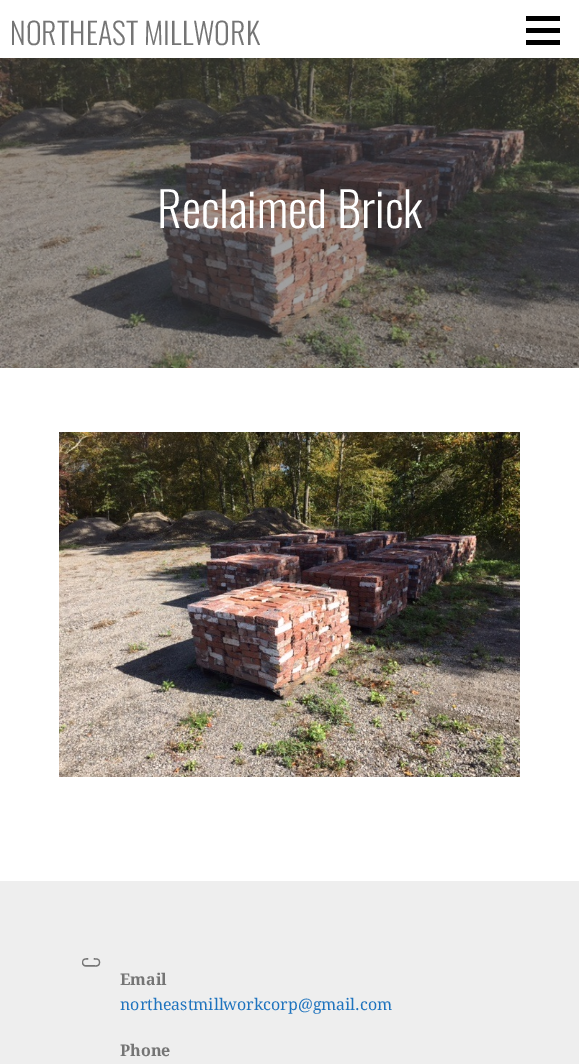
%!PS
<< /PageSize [579 1064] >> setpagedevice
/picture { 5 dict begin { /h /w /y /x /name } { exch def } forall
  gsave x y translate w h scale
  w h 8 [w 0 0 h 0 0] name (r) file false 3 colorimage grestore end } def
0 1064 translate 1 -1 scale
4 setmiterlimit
1 setgray
0 0 579 1064 rectfill
(img1.rgb) 0 58 579 310 picture
/Oswald-Light [30 0 0 -30 0 0] selectfont
0.459 setgray
10 45 moveto (NORTHEAST MILLWORK) show
0 setgray
526 16 34 5 rectfill
526 28 34 5 rectfill
526 40 34 5 rectfill
/Oswald-Light [48 0 0 -48 0 0] selectfont
1 setgray
157 228 moveto (Reclaimed Brick) show
(img2.rgb) 59 432 461 345 picture
0.933 setgray
0 881 579 183 rectfill
/Oswald-Light [22 0 0 -22 0 0] selectfont
0.459 setgray
gsave 100 968 translate -90 rotate 0 0 moveto (C) show grestore
/DroidSerif-Bold [16 0 0 -16 0 0] selectfont
120 985 moveto (Email) show
/DroidSerif-Regular [16 0 0 -16 0 0] selectfont
0.118 0.451 0.745 setrgbcolor
120 1010 moveto (northeastmillworkcorp@gmail.com) show
/DroidSerif-Bold [16 0 0 -16 0 0] selectfont
0.459 setgray
120 1056 moveto (Phone) show
showpage
